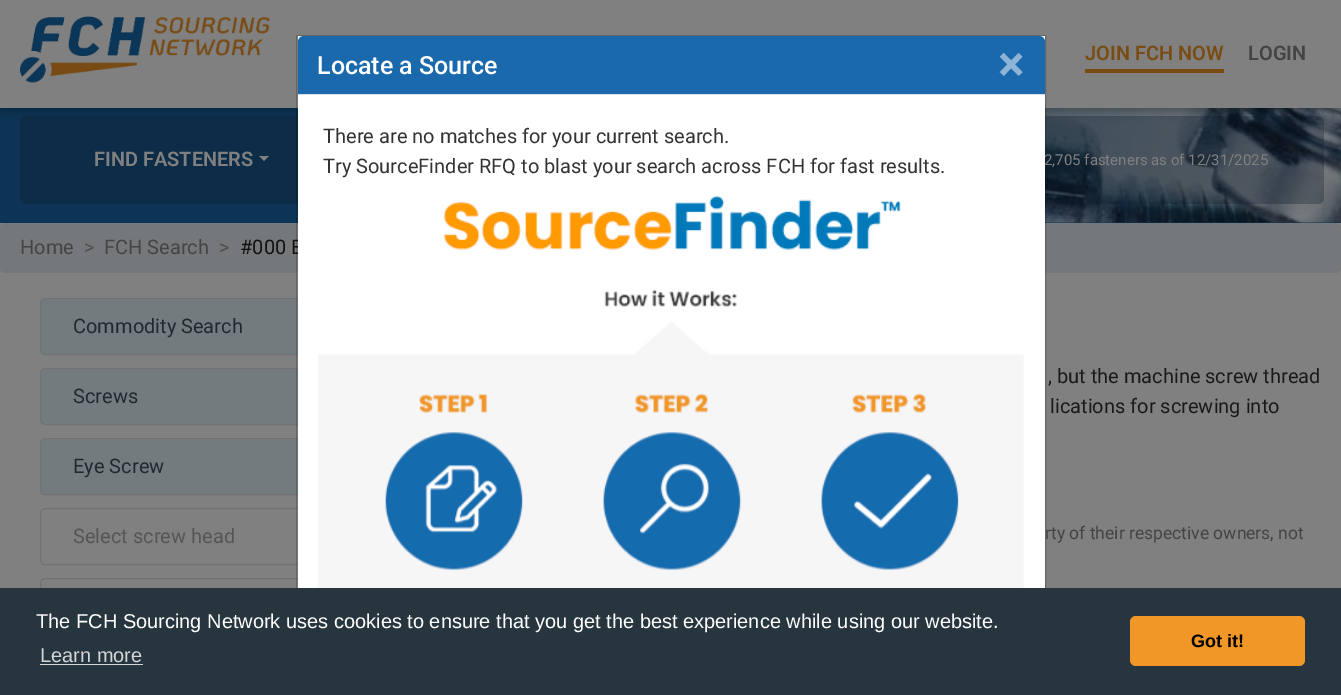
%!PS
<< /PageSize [1341 695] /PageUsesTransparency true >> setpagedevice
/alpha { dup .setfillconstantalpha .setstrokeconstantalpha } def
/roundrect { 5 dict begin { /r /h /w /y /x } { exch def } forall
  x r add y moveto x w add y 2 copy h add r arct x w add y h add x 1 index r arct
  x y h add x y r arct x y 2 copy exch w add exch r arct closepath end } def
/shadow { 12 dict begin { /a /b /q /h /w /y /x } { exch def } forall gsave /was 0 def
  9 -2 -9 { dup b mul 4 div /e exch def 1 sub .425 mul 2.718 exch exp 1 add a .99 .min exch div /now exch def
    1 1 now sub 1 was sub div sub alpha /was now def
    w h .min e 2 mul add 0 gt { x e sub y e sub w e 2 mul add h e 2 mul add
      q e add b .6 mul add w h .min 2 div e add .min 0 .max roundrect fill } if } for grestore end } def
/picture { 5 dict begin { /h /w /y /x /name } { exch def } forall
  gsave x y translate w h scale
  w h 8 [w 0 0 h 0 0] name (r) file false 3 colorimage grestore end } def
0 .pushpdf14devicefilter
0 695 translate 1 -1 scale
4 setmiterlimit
0.502 setgray
0 0 1341 695 rectfill
0.051 0.208 0.337 setrgbcolor
0 222 1341 1 rectfill
(img3.rgb) 0 108 1341 115 picture
0.3 alpha
0.039 0.098 0.157 setrgbcolor
20 116 1304 88 6 roundrect fill
1 alpha
0 setgray
0 4 1341 107 0 5 0.3 shadow
0.502 setgray
0 0 1341 108 rectfill
(img1.rgb) 20 16 250 67 picture
/Roboto-SemiBold [20 0 0 -20 0 0] selectfont
0.475 0.298 0.078 setrgbcolor
1085 60 moveto (JOIN FCH NOW) show
1085 69 139 4 rectfill
0.267 setgray
1248 60 moveto (LOGIN) show
0.451 0.482 0.498 setrgbcolor
40.5 298.5 355 56 4.5 roundrect gsave fill grestore
0.447 setgray
stroke
/Roboto-Regular [20 0 0 -20 0 0] selectfont
0.129 0.161 0.18 setrgbcolor
73 333 moveto (Commodity Search) show
0.451 0.482 0.498 setrgbcolor
40.5 368.5 355 56 4.5 roundrect gsave fill grestore
0.447 setgray
stroke
0.129 0.161 0.18 setrgbcolor
73 403 moveto (Screws) show
0.451 0.482 0.498 setrgbcolor
40.5 438.5 355 56 4.5 roundrect gsave fill grestore
0.447 setgray
stroke
0.129 0.161 0.18 setrgbcolor
73 473 moveto (Eye Screw) show
0.447 setgray
40.5 508.5 355 56 4.5 roundrect stroke
0.333 setgray
73 543 moveto (Select screw head) show
0.447 setgray
40.5 578.5 355 56 4.5 roundrect stroke
0.459 0.471 0.482 setrgbcolor
0 223 1341 50 5 roundrect fill
0.067 setgray
240 254 moveto (#000 E) show
/Roboto-Regular [15 0 0 -15 0 0] selectfont
0.502 setgray
1044 165 moveto (2,705 fasteners as of 12/31/2025) show
1 setgray
298 36 747 552 rectfill
/Roboto-Regular [17.5 0 0 -17.5 0 0] selectfont
0.267 setgray
1045 539 moveto (rty of their respective owners, not) show
0.2 alpha
0 setgray
296.5 35.5 749 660 rectstroke
1 alpha
0.102 0.412 0.675 setrgbcolor
newpath 304 36 moveto 1039 36 lineto 1042.5 36 1045 38.5 1045 42 curveto 1045 95 lineto 298 95 lineto 298 42 lineto 298 38.5 300.5 36 304 36 curveto closepath fill
0.871 0.886 0.902 setrgbcolor
298 94 747 1 rectfill
/Roboto-Medium [25 0 0 -25 0 0] selectfont
1 setgray
317 74 moveto (Locate a Source) show
/Roboto-Bold [50 0 0 -50 0 0] selectfont
0.553 0.706 0.839 setrgbcolor
998 81 moveto (×) show
/Roboto-Regular [20 0 0 -20 0 0] selectfont
0.2 setgray
323 143 moveto (There are no matches for your current search.) show
323 173 moveto (Try SourceFinder RFQ to blast your search across FCH for fast results.) show
(img2.rgb) 318 195 706 393 picture
0.102 setgray
1048 383 moveto (, but the machine screw thread) show
1050 413 moveto (lications for screwing into) show
0.267 setgray
20 254 moveto (Home) show
0.302 setgray
84 254 moveto (>) show
0.267 setgray
104 254 moveto (FCH Search) show
0.302 setgray
219 254 moveto (>) show
/Roboto-SemiBold [20 0 0 -20 0 0] selectfont
0.502 setgray
94 166 moveto (FIND FASTENERS) show
newpath 259 156 moveto 269 156 lineto 264 161 lineto closepath fill
0.153 0.208 0.243 setrgbcolor
0 588 1341 107 rectfill
/LiberationSans-Regular [20 0 0 -20 0 0] selectfont
1 setgray
36 628 moveto (The FCH Sourcing Network uses cookies to ensure that you get the best experience while using our website.) show
0.831 0.843 0.847 setrgbcolor
40 662 moveto (Learn more) show
40 664 103 1 rectfill
0.945 0.592 0.153 setrgbcolor
1130 616 175 50 6 roundrect fill
/LiberationSans-Bold [18 0 0 -18 0 0] selectfont
0 setgray
1191 647 moveto (Got it!) show
.poppdf14devicefilter showpage
